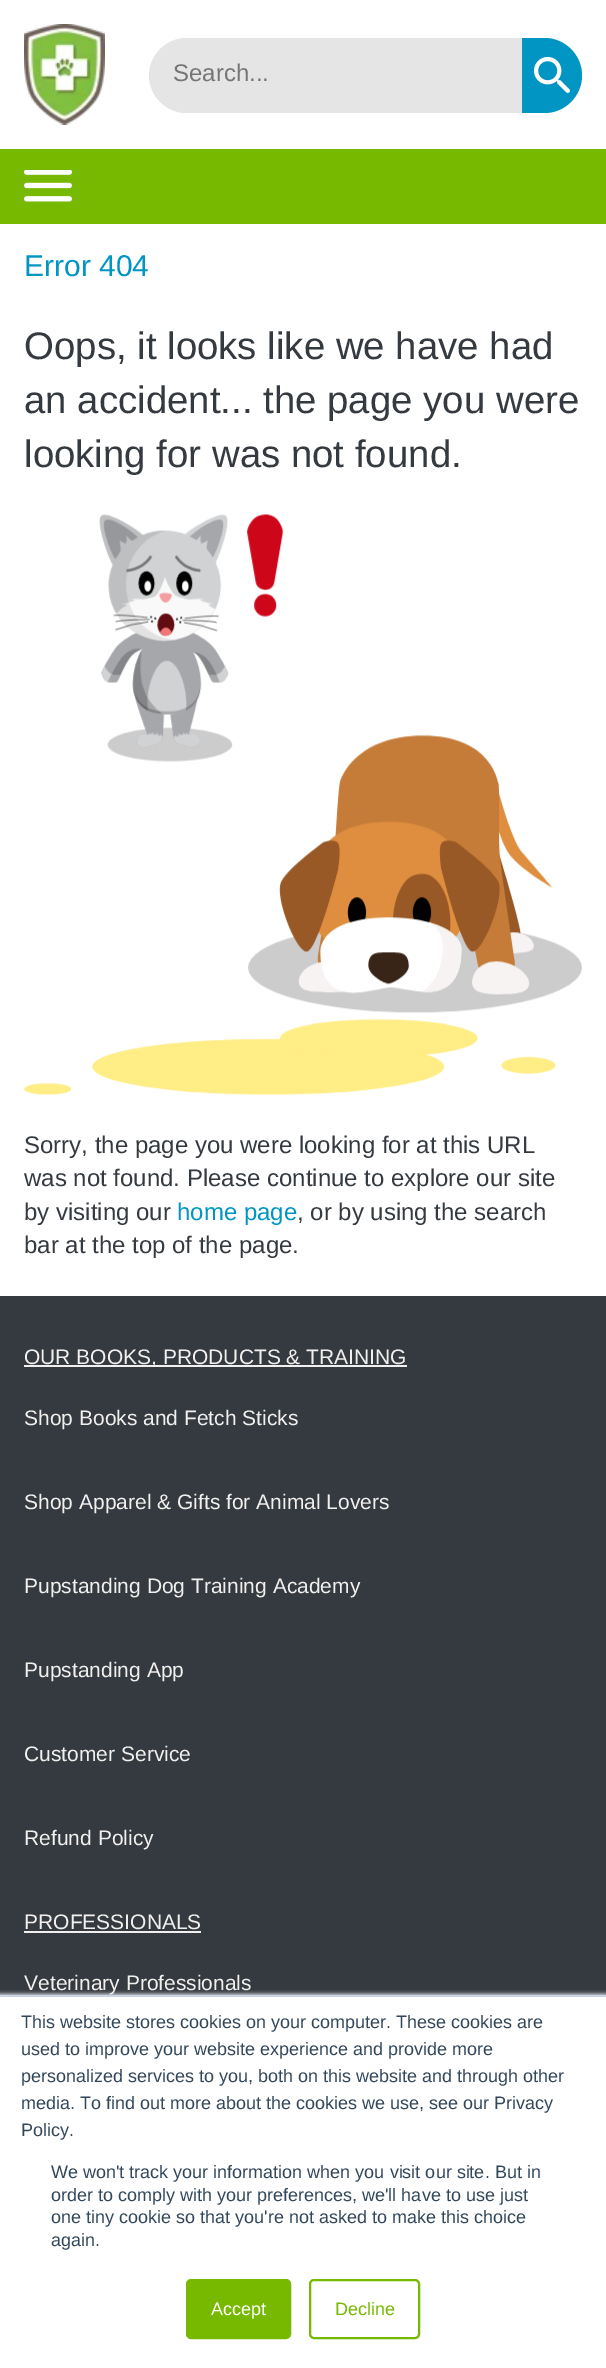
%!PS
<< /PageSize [606 2368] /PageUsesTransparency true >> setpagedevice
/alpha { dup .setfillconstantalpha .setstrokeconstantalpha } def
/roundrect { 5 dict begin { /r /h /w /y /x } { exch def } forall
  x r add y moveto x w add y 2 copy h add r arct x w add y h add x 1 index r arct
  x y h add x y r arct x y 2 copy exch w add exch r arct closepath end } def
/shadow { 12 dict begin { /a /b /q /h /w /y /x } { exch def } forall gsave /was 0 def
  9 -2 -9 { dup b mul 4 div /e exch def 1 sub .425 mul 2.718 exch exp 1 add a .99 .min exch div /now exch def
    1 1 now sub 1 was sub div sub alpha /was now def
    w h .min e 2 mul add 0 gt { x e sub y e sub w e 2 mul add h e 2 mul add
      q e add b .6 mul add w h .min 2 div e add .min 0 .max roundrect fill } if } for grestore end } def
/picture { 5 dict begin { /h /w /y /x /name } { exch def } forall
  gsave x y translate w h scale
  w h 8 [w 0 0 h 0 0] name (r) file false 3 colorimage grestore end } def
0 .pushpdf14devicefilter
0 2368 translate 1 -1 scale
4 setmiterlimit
1 setgray
0 0 606 2368 rectfill
(img1.rgb) 24 24 81 101 picture
0.898 setgray
newpath 186.5 38 moveto 522 38 lineto 522 113 lineto 186.5 113 lineto 166 113 149 96 149 75.5 curveto 149 55 166 38 186.5 38 curveto closepath fill
/LiberationSans-Regular [24 0 0 -24 0 0] selectfont
0.459 setgray
173 81 moveto (Search...) show
0 0.584 0.765 setrgbcolor
newpath 522 38 moveto 544.5 38 lineto 565 38 582 55 582 75.5 curveto 582 96 565 113 544.5 113 curveto 522 113 lineto closepath fill
(img2.rgb) 534 57 36 36 picture
0.467 0.722 0 setrgbcolor
0 149 606 75 rectfill
(img3.rgb) 24 170 48 32 picture
/LiberationSans-Regular [30 0 0 -30 0 0] selectfont
0 0.584 0.765 setrgbcolor
24 276 moveto (Error 404) show
/LiberationSans-Regular [38.4 0 0 -38.4 0 0] selectfont
0.204 0.227 0.251 setrgbcolor
24 359 moveto (Oops, it looks like we have had) show
24 413 moveto (an accident... the page you were) show
24 467 moveto (looking for was not found.) show
(img4.rgb) 24 514 558 581 picture
/LiberationSans-Regular [24 0 0 -24 0 0] selectfont
24 1153 moveto (Sorry, the page you were looking for at this URL) show
24 1186 moveto (was not found. Please continue to explore our site) show
24 1220 moveto (by visiting our) show
0 0.584 0.765 setrgbcolor
177 1220 moveto (home page) show
0.204 0.227 0.251 setrgbcolor
297 1220 moveto (, or by using the search) show
24 1253 moveto (bar at the top of the page.) show
0 1296 606 699 rectfill
0.949 0.941 0.933 setrgbcolor
24 1365 383 2 rectfill
/LiberationSans-Regular [21 0 0 -21 0 0] selectfont
24 1364 moveto (OUR BOOKS, PRODUCTS & TRAINING) show
24 1425 moveto (Shop Books and Fetch Sticks) show
24 1509 moveto (Shop Apparel & Gifts for Animal Lovers) show
24 1593 moveto (Pupstanding Dog Training Academy) show
24 1677 moveto (Pupstanding App) show
24 1761 moveto (Customer Service) show
24 1845 moveto (Refund Policy) show
24 1929 moveto (PROFESSIONALS) show
24 1931 177 2 rectfill
24 1990 moveto (Veterinary Professionals) show
0.918 0.941 0.965 setrgbcolor
0 1994 606 373 0 2 1 shadow
1 setgray
0 1997 606 371 rectfill
0.796 0.839 0.886 setrgbcolor
0 1995 606 2 rectfill
/LiberationSans-Regular [18 0 0 -18 0 0] selectfont
0.2 0.278 0.357 setrgbcolor
21 2028 moveto (This website stores cookies on your computer. These cookies are) show
21 2055 moveto (used to improve your website experience and provide more) show
21 2082 moveto (personalized services to you, both on this website and through other) show
21 2109 moveto (media. To find out more about the cookies we use, see our Privacy) show
21 2136 moveto (Policy.) show
51 2178 moveto (We won't track your information when you visit our site. But in) show
51 2201 moveto (order to comply with your preferences, we'll have to use just) show
51 2223 moveto (one tiny cookie so that you're not asked to make this choice) show
51 2246 moveto (again.) show
0.467 0.722 0 setrgbcolor
187 2280 103 58 4 roundrect gsave fill grestore
2 setlinewidth
stroke
1 setgray
211 2315 moveto (Accept) show
0.467 0.722 0 setrgbcolor
310 2280 109 58 4 roundrect stroke
335 2315 moveto (Decline) show
.poppdf14devicefilter showpage
